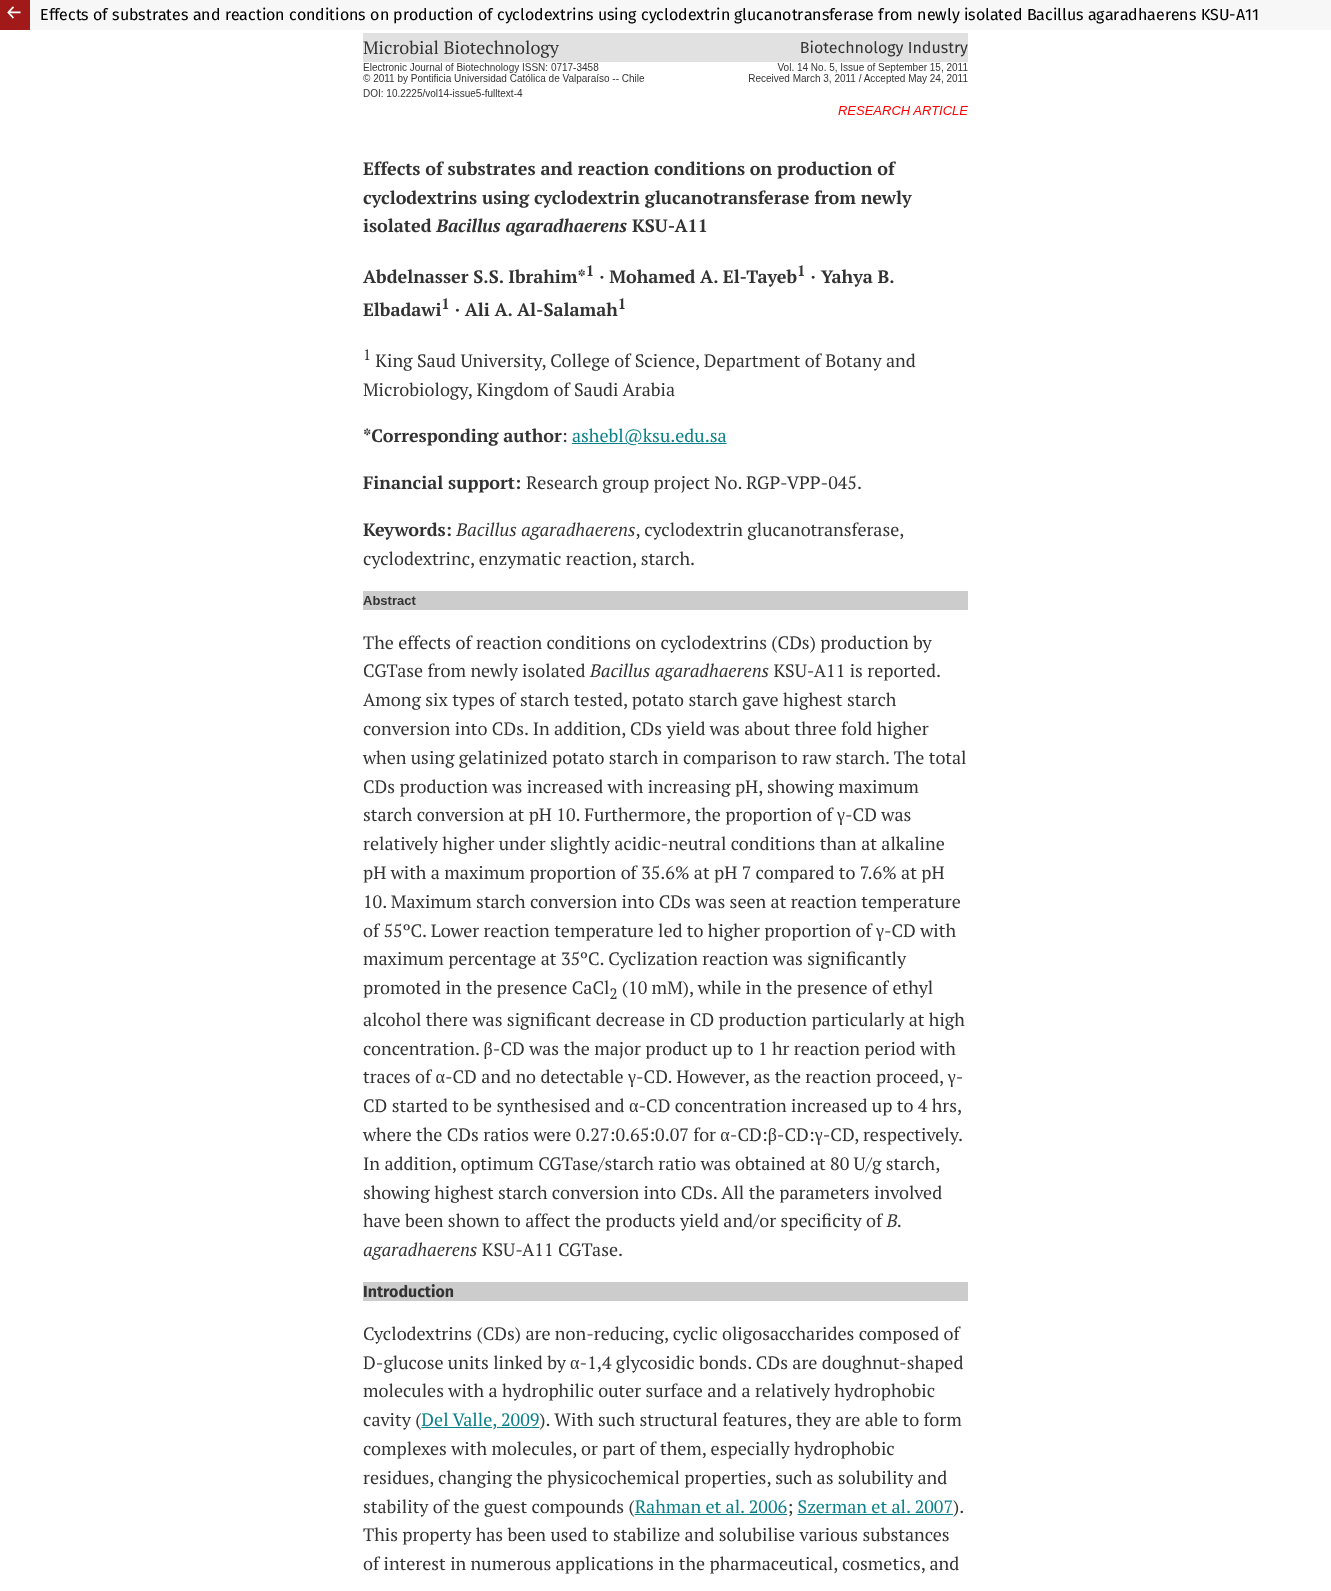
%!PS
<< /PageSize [1331 1591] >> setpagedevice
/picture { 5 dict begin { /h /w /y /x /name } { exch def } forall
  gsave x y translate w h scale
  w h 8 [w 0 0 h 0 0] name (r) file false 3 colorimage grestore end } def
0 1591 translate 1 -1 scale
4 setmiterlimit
1 setgray
0 0 1331 1591 rectfill
0.969 setgray
30 0 1301 30 rectfill
0.631 0.098 0.098 setrgbcolor
0 0 30 30 rectfill
/FiraSans-Regular [20 0 0 -20 0 0] selectfont
1 setgray
5 19 moveto (←) show
/FiraSans-Regular [16 0 0 -16 0 0] selectfont
0 setgray
40 20 moveto (Effects of substrates and reaction conditions on production of cyclodextrins using cyclodextrin glucanotransferase from newly isolated Bacillus agaradhaerens KSU-A11) show
(img1.rgb) 362 33 606 1541 picture
showpage
